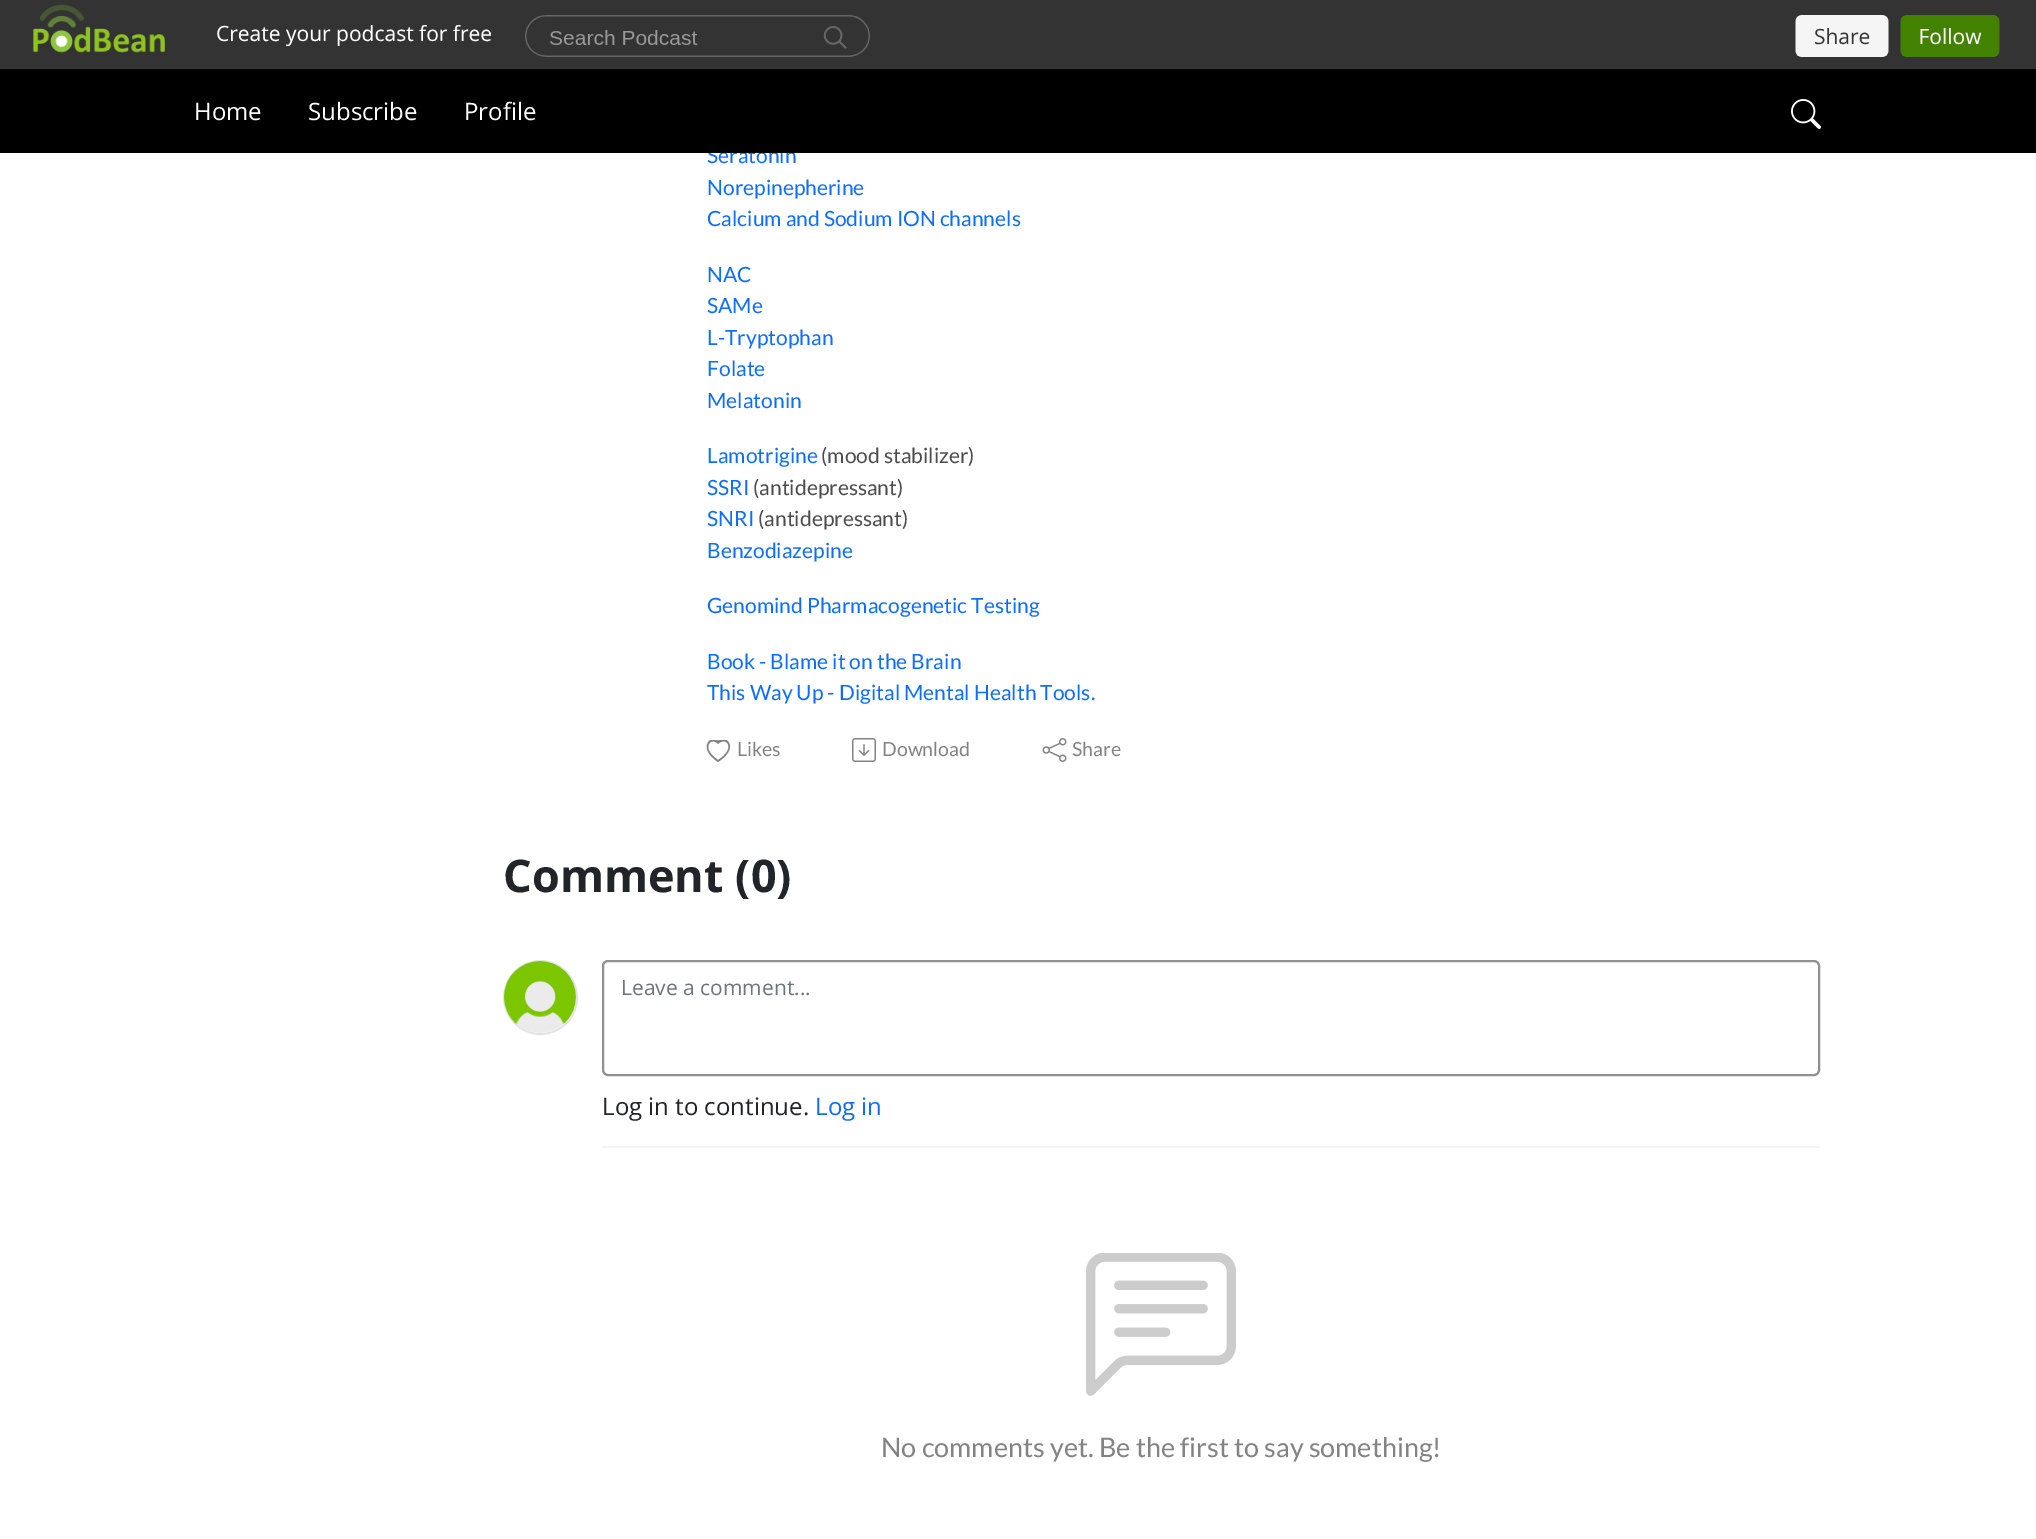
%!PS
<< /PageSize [2036 1539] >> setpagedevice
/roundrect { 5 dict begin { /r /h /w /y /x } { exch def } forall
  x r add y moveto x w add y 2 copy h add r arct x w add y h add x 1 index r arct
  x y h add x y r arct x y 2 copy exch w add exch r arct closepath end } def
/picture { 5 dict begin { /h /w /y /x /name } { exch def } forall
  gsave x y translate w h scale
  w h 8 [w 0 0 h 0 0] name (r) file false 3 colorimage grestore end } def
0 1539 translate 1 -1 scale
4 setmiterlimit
1 setgray
0 0 2036 1539 rectfill
0.2 setgray
0 0 2036 69 rectfill
(img1.rgb) 33 4 1967 53 picture
/Lato-Regular [21 0 0 -21 0 0] selectfont
0.051 0.431 0.992 setrgbcolor
707 163 moveto (Seratonin) show
0 setgray
0 69 2036 84 rectfill
/OpenSans-Regular [24 0 0 -24 0 0] selectfont
1 setgray
194 120 moveto (Home) show
308 120 moveto (Subscribe) show
464 120 moveto (Profile) show
(img2.rgb) 1791 99 30 30 picture
/Lato-Regular [21 0 0 -21 0 0] selectfont
0.051 0.431 0.992 setrgbcolor
707 195 moveto (Norepinepherine) show
707 226 moveto (Calcium and Sodium ION channels) show
707 282 moveto (NAC) show
707 313 moveto (SAMe) show
707 345 moveto (L-Tryptophan) show
707 376 moveto (Folate) show
707 408 moveto (Melatonin) show
707 463 moveto (Lamotrigine) show
0.298 setgray
821 463 moveto (\(mood stabilizer\)) show
0.051 0.431 0.992 setrgbcolor
707 495 moveto (SSRI) show
0.298 setgray
753 495 moveto (\(antidepressant\)) show
0.051 0.431 0.992 setrgbcolor
707 526 moveto (SNRI) show
0.298 setgray
758 526 moveto (\(antidepressant\)) show
0.051 0.431 0.992 setrgbcolor
707 558 moveto (Benzodiazepine) show
707 613 moveto (Genomind Pharmacogenetic Testing) show
707 669 moveto (Book - Blame it on the Brain) show
707 700 moveto (This Way Up - Digital Mental Health Tools.) show
gsave
704 740 30 24 rectclip
0.514 setgray
newpath 718 744 moveto 711 736 700 748 718 760 curveto 737 748 726 736 718 744 curveto closepath 718 762 moveto 696 747 712 734 718 741 curveto 725 734 741 747 718 762 curveto closepath fill
grestore
/Lato-Regular [19.5 0 0 -19.5 0 0] selectfont
0.514 setgray
737 756 moveto (Likes) show
(img3.rgb) 852 738 24 24 picture
882 756 moveto (Download) show
(img4.rgb) 1042 738 25 24 picture
1072 756 moveto (Share) show
/OpenSans-Bold [45 0 0 -45 0 0] selectfont
0.129 0.145 0.161 setrgbcolor
503 892 moveto (Comment \(0\)) show
0.89 setgray
2 setlinewidth
newpath 540.5 997.5 36.5 0 360 arc closepath stroke
(img5.rgb) 504 961 72 72 picture
0.961 setgray
602 1146 1218 2 rectfill
0.565 setgray
603 961 1216 114 5 roundrect stroke
/OpenSans-Regular [21 0 0 -21 0 0] selectfont
0.424 0.459 0.49 setrgbcolor
621 995 moveto (Leave a comment...) show
/OpenSans-Regular [24 0 0 -24 0 0] selectfont
0.129 0.145 0.161 setrgbcolor
602 1115 moveto (Log in to continue.) show
0.051 0.431 0.992 setrgbcolor
815 1115 moveto (Log in) show
(img6.rgb) 1086 1253 150 143 picture
/Lato-Regular [27 0 0 -27 0 0] selectfont
0.514 setgray
881 1457 moveto (No comments yet. Be the first to say something!) show
showpage
